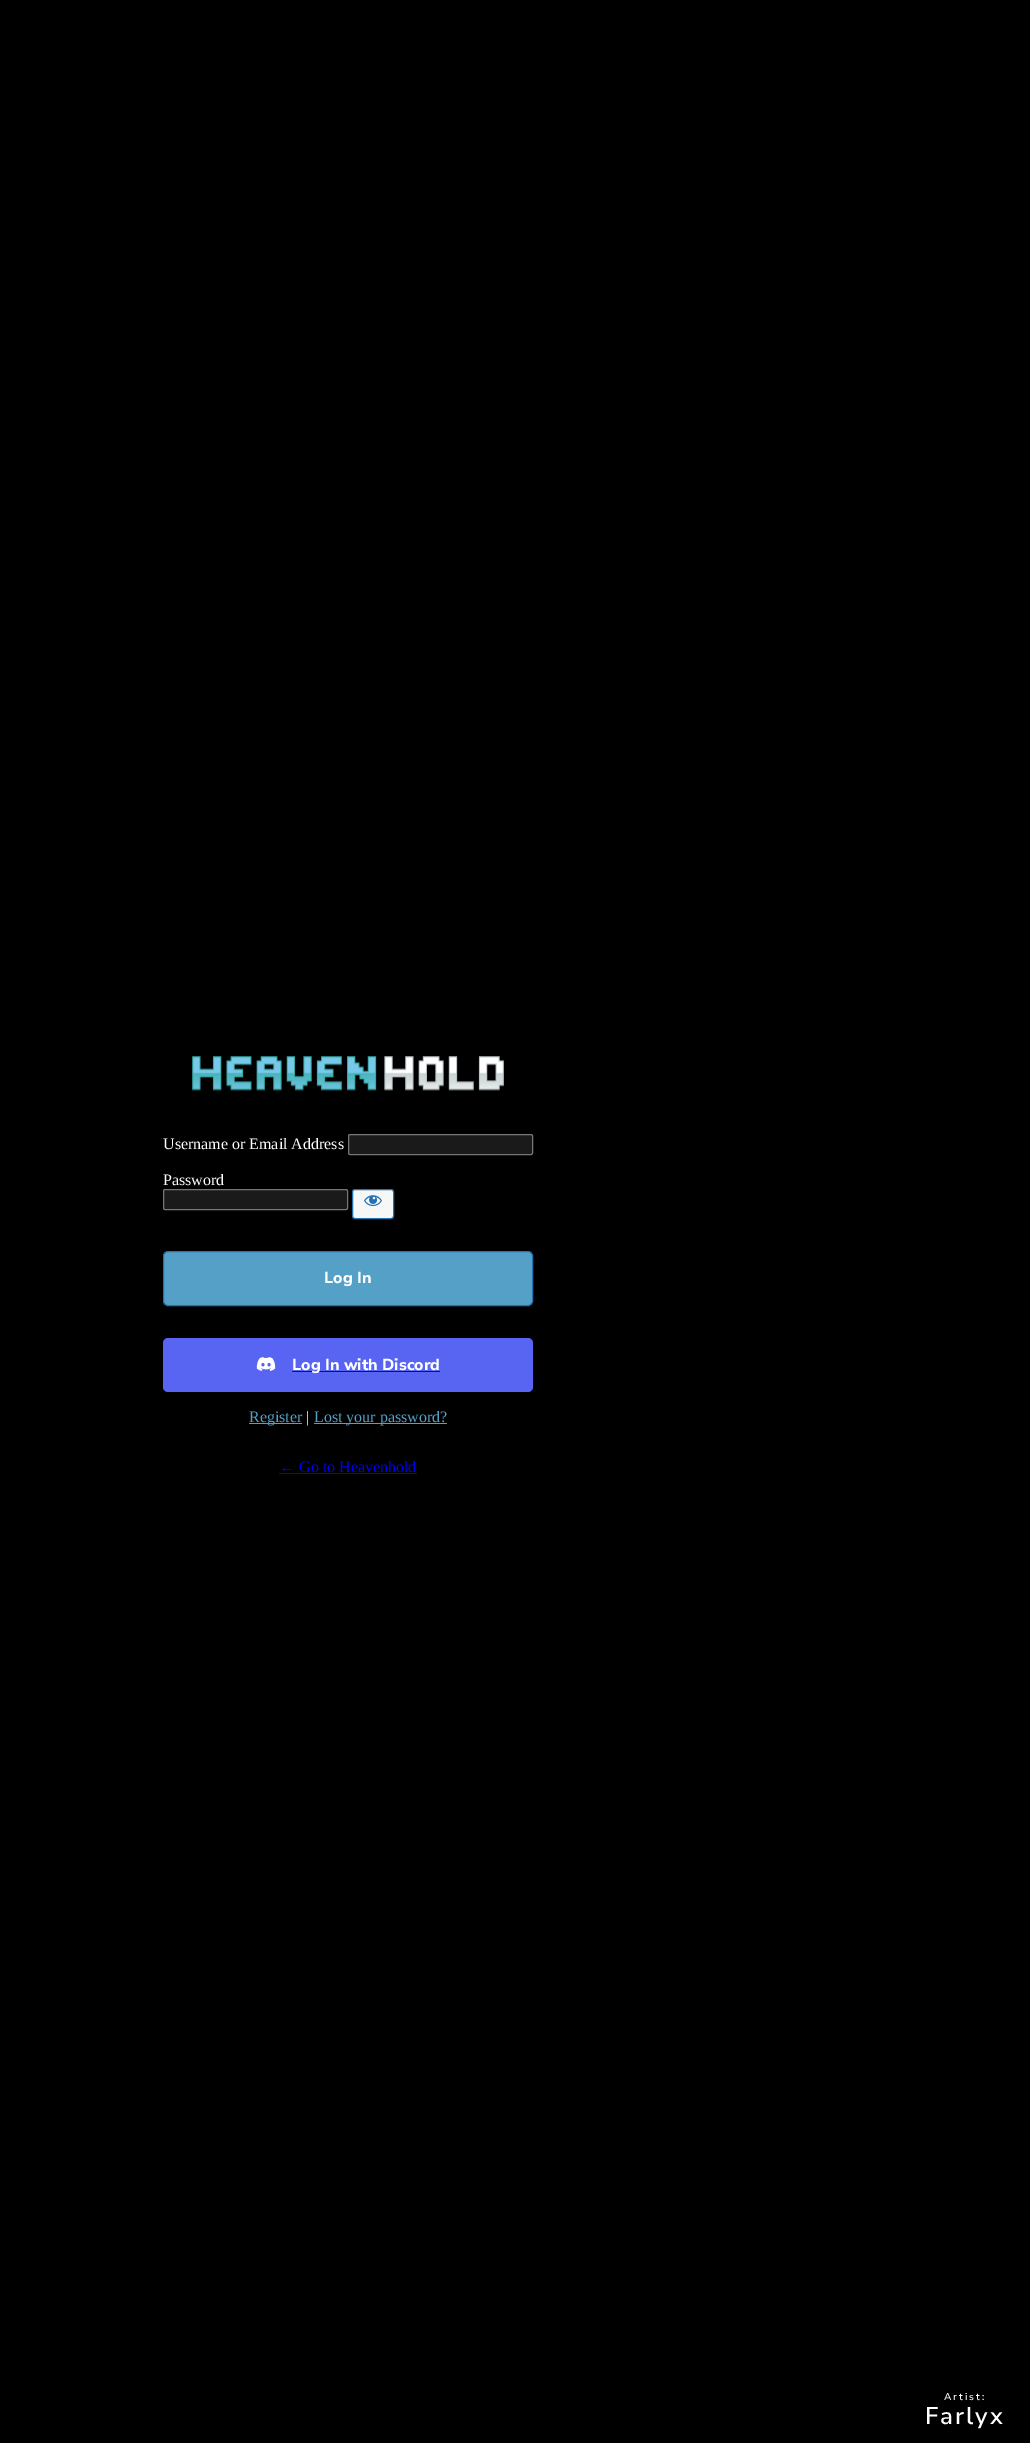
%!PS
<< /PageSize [1030 2443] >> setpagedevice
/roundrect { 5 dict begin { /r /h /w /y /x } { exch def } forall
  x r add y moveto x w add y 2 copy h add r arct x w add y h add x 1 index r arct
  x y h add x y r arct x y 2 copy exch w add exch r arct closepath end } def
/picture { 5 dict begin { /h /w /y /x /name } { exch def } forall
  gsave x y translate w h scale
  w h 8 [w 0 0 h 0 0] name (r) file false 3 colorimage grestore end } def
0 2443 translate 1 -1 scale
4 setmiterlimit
0 setgray
0 0 1030 2443 rectfill
(img1.rgb) 192 1056 312 35 picture
/LiberationSerif-Regular [16 0 0 -16 0 0] selectfont
1 setgray
163 1149 moveto (Username or Email Address) show
0.102 setgray
348.5 1134.5 184 20 1.5 roundrect gsave fill grestore
0.463 setgray
stroke
1 setgray
163 1185 moveto (Password) show
0.102 setgray
163.5 1189.5 184 20 1.5 roundrect gsave fill grestore
0.463 setgray
stroke
0.965 0.969 0.969 setrgbcolor
352.5 1189.5 41 29 2.5 roundrect gsave fill grestore
0.133 0.443 0.694 setrgbcolor
stroke
(img2.rgb) 364 1195 18 12 picture
0.333 0.627 0.78 setrgbcolor
163.5 1251.5 369 54 4.5 roundrect gsave fill grestore
0.133 0.443 0.694 setrgbcolor
stroke
/NunitoSans-ExtraLight [16 0 0 -16 0 0] selectfont
1 setgray
324 1283 moveto (Log In) show
0.345 0.396 0.949 setrgbcolor
163 1338 370 54 5 roundrect fill
(img3.rgb) 256 1357 20 14 picture
0 0 0.933 setrgbcolor
292 1371 148 1 rectfill
1 setgray
292 1370 moveto (Log In with Discord) show
0.333 0.627 0.78 setrgbcolor
249 1423 53 1 rectfill
/LiberationSerif-Regular [16 0 0 -16 0 0] selectfont
249 1422 moveto (Register) show
1 setgray
306 1422 moveto (|) show
0.333 0.627 0.78 setrgbcolor
314 1423 133 1 rectfill
314 1422 moveto (Lost your password?) show
0 0 0.933 setrgbcolor
279 1472 moveto (← Go to Heavenhold) show
279 1473 138 1 rectfill
/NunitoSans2-ExtraLight [10 0 0 -10 0 0] selectfont
1 setgray
944 2400 moveto 2 0 (Artist:) ashow
/NunitoSans2-ExtraLight [24 0 0 -24 0 0] selectfont
925 2424 moveto 2 0 (Farlyx) ashow
showpage
